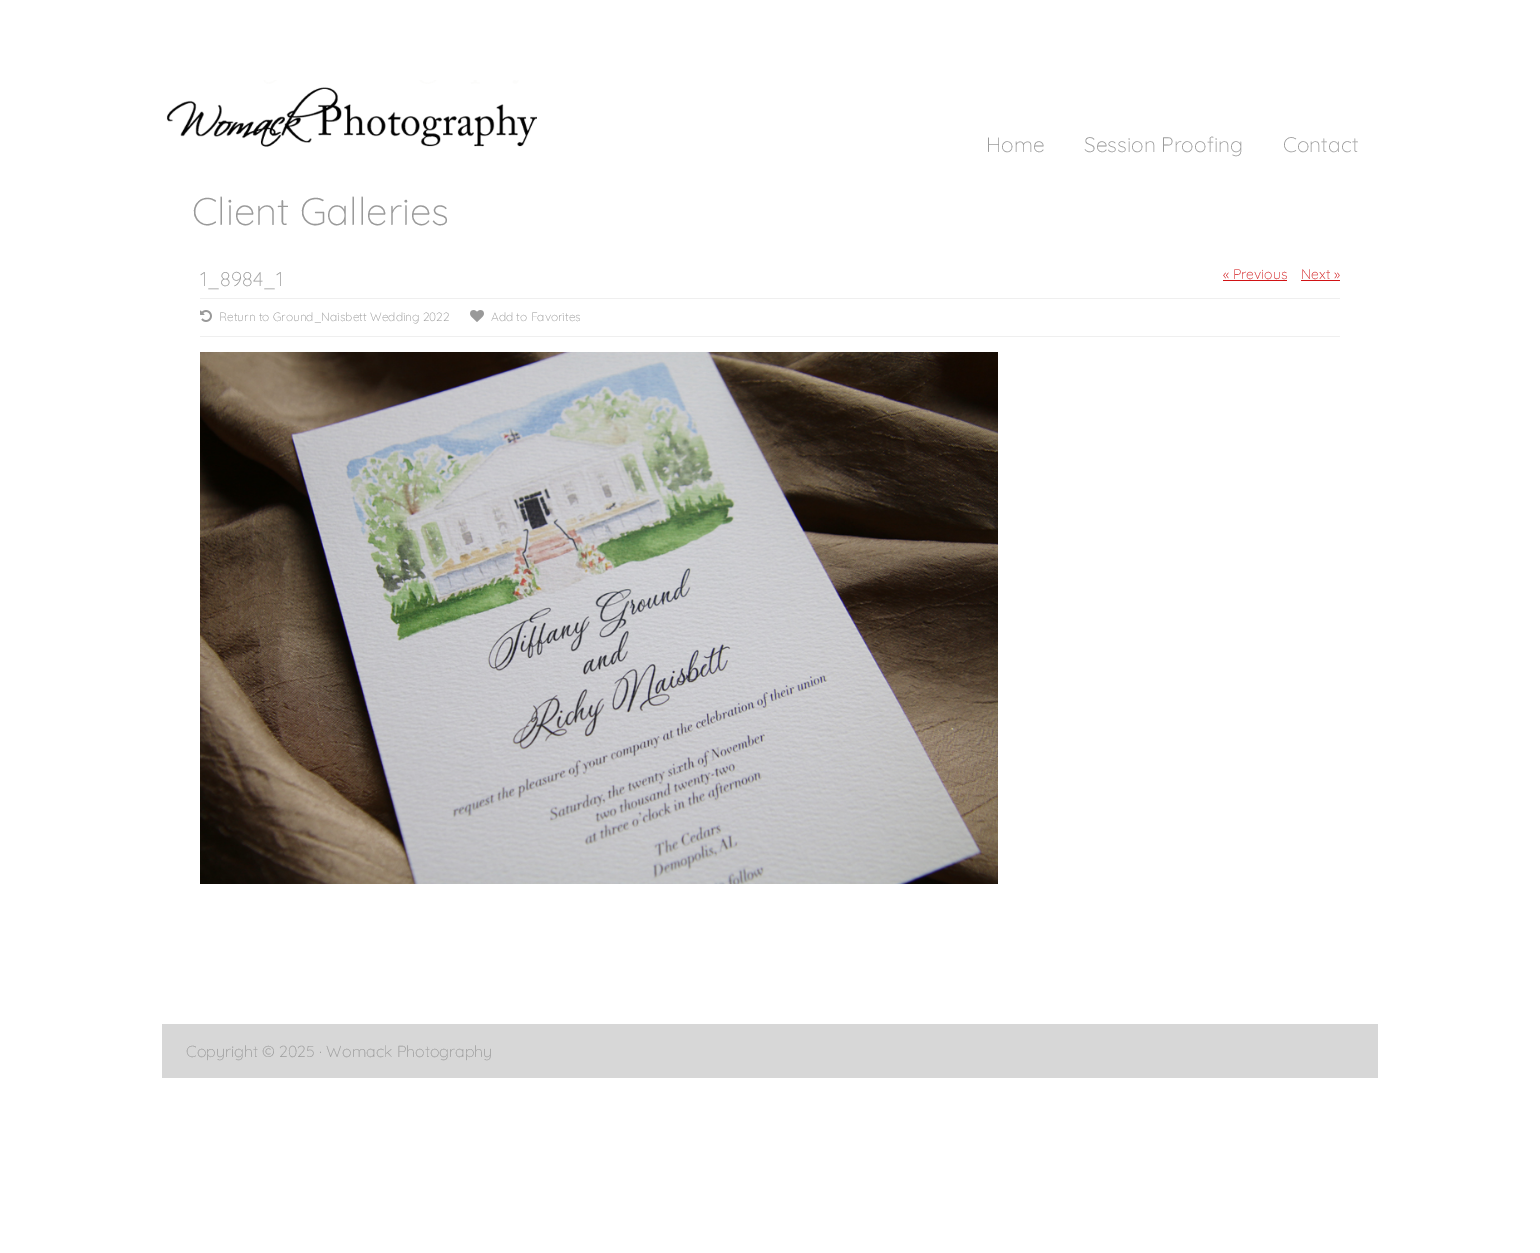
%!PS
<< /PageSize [1540 1253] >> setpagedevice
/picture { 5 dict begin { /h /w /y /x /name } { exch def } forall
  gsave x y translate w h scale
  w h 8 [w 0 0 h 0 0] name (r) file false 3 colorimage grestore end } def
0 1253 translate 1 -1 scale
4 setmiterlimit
1 setgray
0 0 1540 1253 rectfill
(img1.rgb) 166 80 371 67 picture
/Quicksand-Light [21 0 0 -21 0 0] selectfont
0.604 setgray
986 152 moveto (Home) show
1084 152 moveto (Session Proofing) show
1283 152 moveto (Contact) show
/Quicksand-Light [38.5 0 0 -38.5 0 0] selectfont
192 225 moveto (Client Galleries) show
/Quicksand-Light [20 0 0 -20 0 0] selectfont
200 286 moveto (1_8984_1) show
0.937 setgray
200 298 1140 1 rectfill
200 336 1140 1 rectfill
(img2.rgb) 200 310 12 12 picture
/Quicksand-Light [12 0 0 -12 0 0] selectfont
0.604 setgray
219 321 moveto (Return to Ground_Naisbett Wedding 2022) show
(img3.rgb) 470 310 14 12 picture
491 321 moveto (Add to Favorites) show
(img4.rgb) 200 352 798 532 picture
/Quicksand-Light [14 0 0 -14 0 0] selectfont
0.82 0.071 0.078 setrgbcolor
1223 279 moveto (« Previous) show
1223 280 64 1 rectfill
1301 279 moveto (Next ») show
1301 280 39 1 rectfill
0.843 setgray
162 1024 1216 54 rectfill
/Quicksand-Light [16 0 0 -16 0 0] selectfont
0.604 setgray
186 1057 moveto (Copyright © 2025 · Womack Photography) show
showpage
